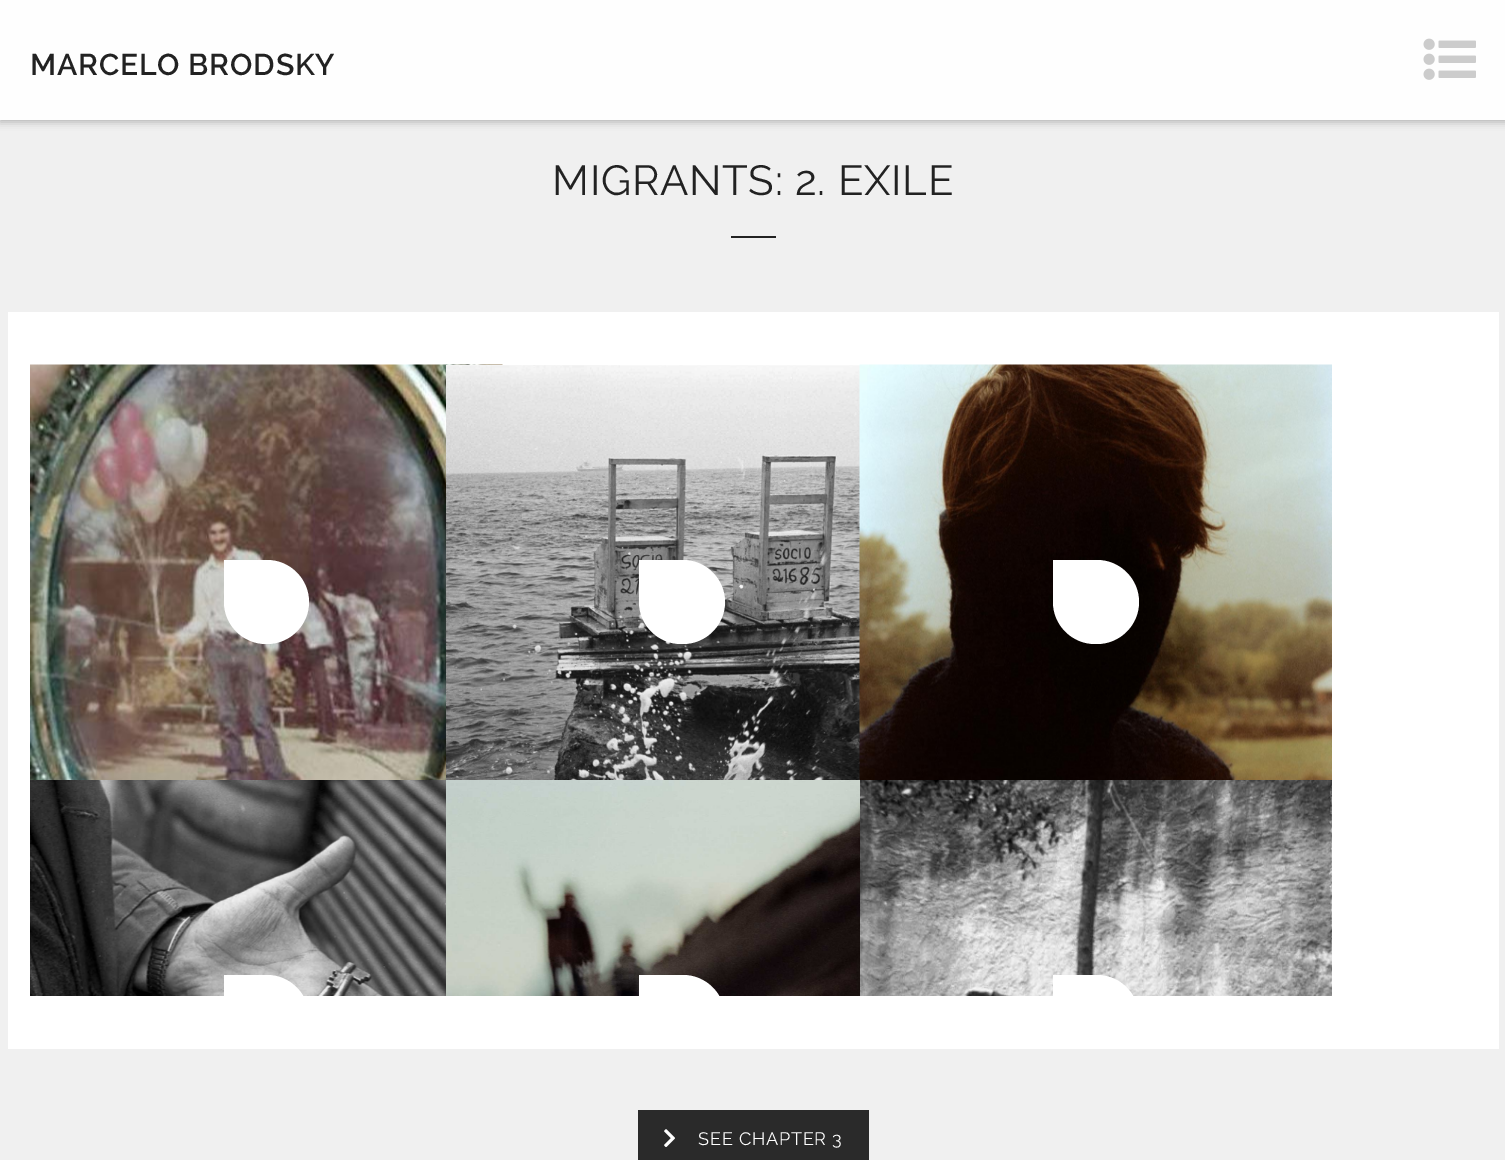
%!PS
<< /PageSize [1505 1160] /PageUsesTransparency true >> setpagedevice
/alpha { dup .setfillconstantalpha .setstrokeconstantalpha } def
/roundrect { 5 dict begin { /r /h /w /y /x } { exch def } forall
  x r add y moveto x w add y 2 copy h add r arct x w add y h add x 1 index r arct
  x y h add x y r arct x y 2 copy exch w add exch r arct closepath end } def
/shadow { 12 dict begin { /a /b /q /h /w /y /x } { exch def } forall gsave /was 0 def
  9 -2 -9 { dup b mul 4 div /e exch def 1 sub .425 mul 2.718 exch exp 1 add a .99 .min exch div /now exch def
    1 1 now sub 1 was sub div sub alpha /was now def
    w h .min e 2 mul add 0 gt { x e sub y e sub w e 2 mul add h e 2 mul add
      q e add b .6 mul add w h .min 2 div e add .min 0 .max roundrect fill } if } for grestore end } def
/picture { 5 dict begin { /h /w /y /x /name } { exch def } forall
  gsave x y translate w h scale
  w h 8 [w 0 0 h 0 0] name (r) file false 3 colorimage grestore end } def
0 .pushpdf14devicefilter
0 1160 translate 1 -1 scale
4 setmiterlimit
0.941 setgray
0 0 1505 1160 rectfill
0 setgray
0 2 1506 120 0 4 0.25 shadow
0.996 setgray
0 0 1505 120 rectfill
/Raleway-SemiBold [30 0 0 -30 0 0] selectfont
0.133 setgray
30 75 moveto 0.75 0 (MARCELO BRODSKY) ashow
(img1.rgb) 1423 38 53 42 picture
/Raleway-Regular [42 0 0 -42 0 0] selectfont
552 195 moveto 0.75 0 (MIGRANTS: 2. EXILE) ashow
731 236 45 2 rectfill
1 setgray
8 312 1491 737 rectfill
(img2.rgb) 30 364 473 416 picture
newpath 224 560 moveto 267 560 lineto 290 560 309 579 309 602 curveto 309 625 290 644 267 644 curveto 266 644 lineto 243 644 224 625 224 602 curveto closepath fill
(img3.rgb) 446 365 414 415 picture
newpath 639 560 moveto 683 560 lineto 706 560 725 579 725 602 curveto 725 625 706 644 683 644 curveto 681 644 lineto 658 644 639 625 639 602 curveto closepath fill
(img4.rgb) 859 364 473 416 picture
newpath 1053 560 moveto 1097 560 lineto 1120 560 1139 579 1139 602 curveto 1139 625 1120 644 1097 644 curveto 1095 644 lineto 1072 644 1053 625 1053 602 curveto closepath fill
(img5.rgb) 30 780 416 216 picture
newpath 224 975 moveto 267 975 lineto 290 975 309 994 309 1017 curveto 309 996 lineto 224 996 lineto closepath fill
(img6.rgb) 446 780 414 216 picture
newpath 639 975 moveto 683 975 lineto 706 975 725 994 725 1017 curveto 725 996 lineto 639 996 lineto closepath fill
(img7.rgb) 860 780 472 216 picture
newpath 1053 975 moveto 1097 975 lineto 1120 975 1139 994 1139 1017 curveto 1139 996 lineto 1053 996 lineto closepath fill
0.165 setgray
638 1110 231 50 rectfill
(img8.rgb) 664 1129 11 18 picture
/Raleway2-Regular [18 0 0 -18 0 0] selectfont
1 setgray
698 1145 moveto 0.75 0 (SEE CHAPTER 3) ashow
.poppdf14devicefilter showpage
